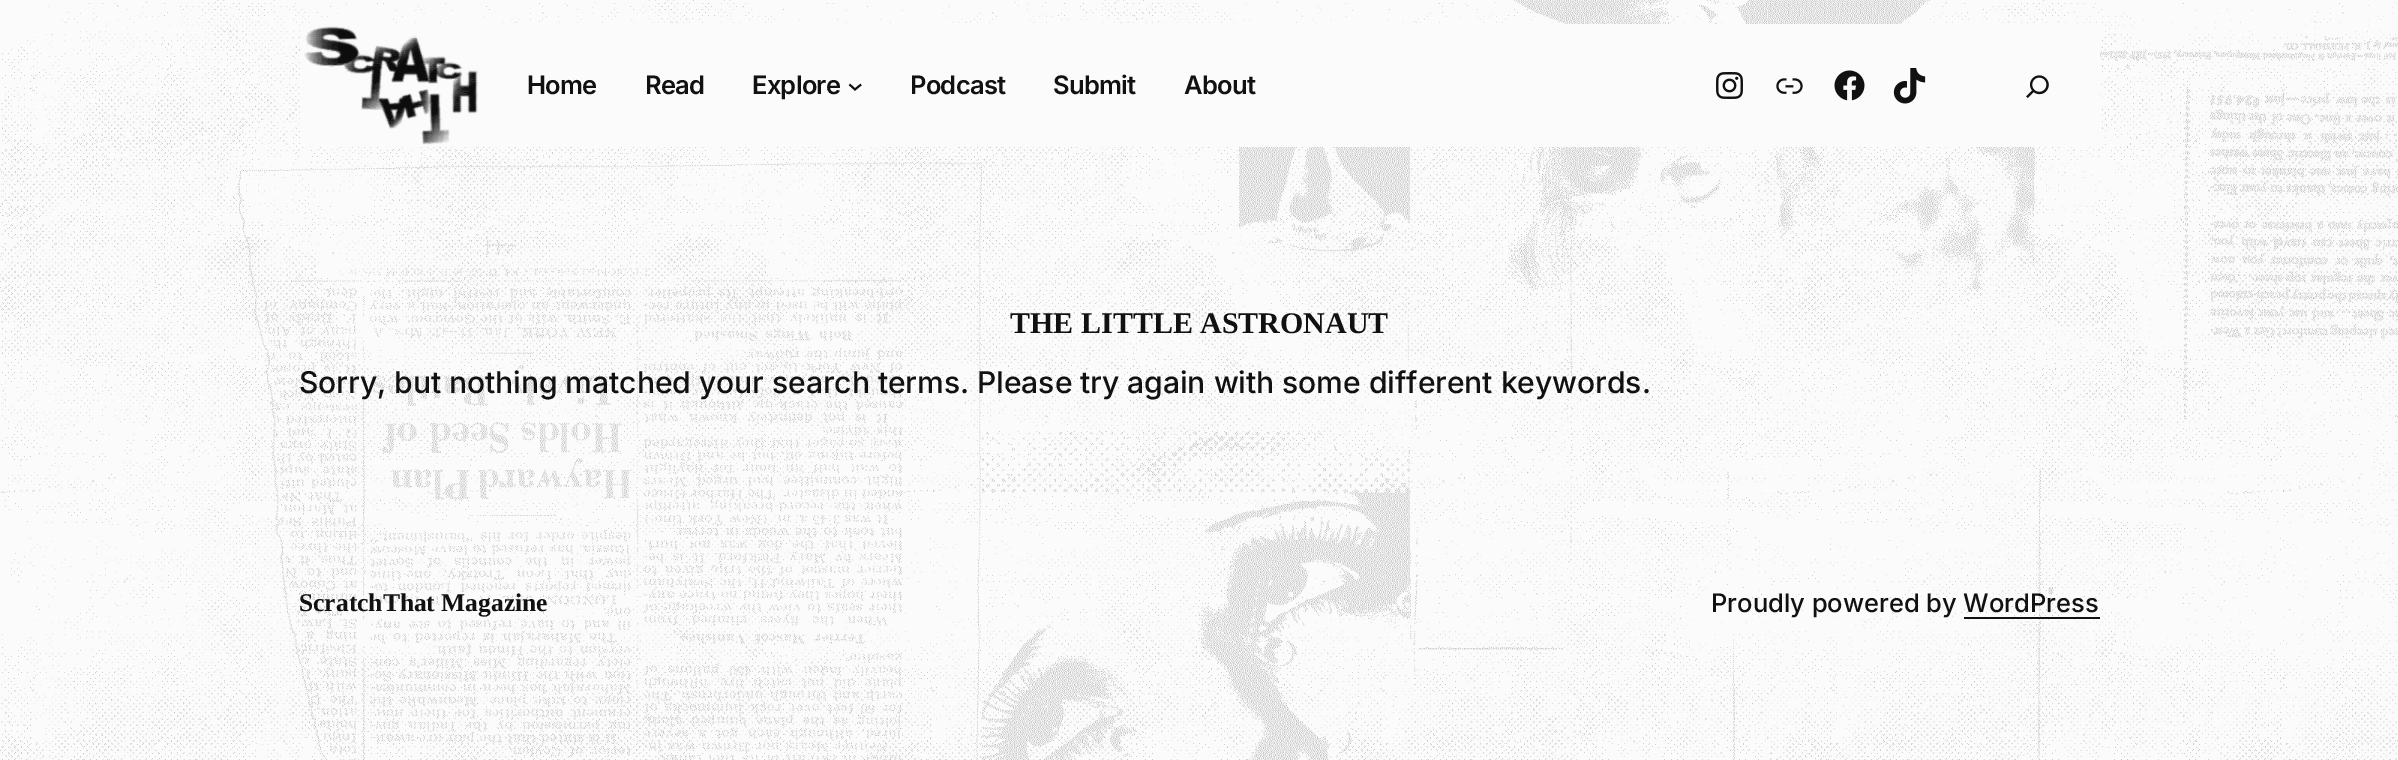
%!PS
<< /PageSize [2398 760] >> setpagedevice
/picture { 5 dict begin { /h /w /y /x /name } { exch def } forall
  gsave x y translate w h scale
  w h 8 [w 0 0 h 0 0] name (r) file false 3 colorimage grestore end } def
0 760 translate 1 -1 scale
4 setmiterlimit
1 setgray
0 0 2398 760 rectfill
(img1.rgb) 0 0 2398 760 picture
0.984 setgray
300 24 1800 123 rectfill
(img2.rgb) 304 26 174 119 picture
/Inter-SemiBold [25.5 0 0 -25.5 0 0] selectfont
0.067 setgray
527 94 moveto -0.75 0 (Home) ashow
645 94 moveto -0.75 0 (Read) ashow
752 94 moveto -0.75 0 (Explore) ashow
1.9 setlinewidth
newpath 849.5 84.5 moveto 855 89.5 lineto 861 84.5 lineto stroke
910 94 moveto -0.75 0 (Podcast) ashow
1053 94 moveto -0.75 0 (Submit) ashow
1184 94 moveto -0.75 0 (About) ashow
(img3.rgb) 1716 72 27 27 picture
(img4.rgb) 1776 78 27 16 picture
(img5.rgb) 1834 70 31 31 picture
(img6.rgb) 1893 68 33 36 picture
(img7.rgb) 2026 75 23 23 picture
/LiberationSerif-Bold [30 0 0 -30 0 0] selectfont
1010 333 moveto (THE LITTLE ASTRONAUT) show
/Inter-Medium [30 0 0 -30 0 0] selectfont
299 393 moveto (Sorry, but nothing matched your search terms. Please try again with some different keywords.) show
/LiberationSerif-Bold [25.5 0 0 -25.5 0 0] selectfont
299 611 moveto (ScratchThat Magazine) show
/Inter-Medium [25.5 0 0 -25.5 0 0] selectfont
1711 612 moveto (Proudly powered by WordPress) show
1964 617 136 2 rectfill
showpage
